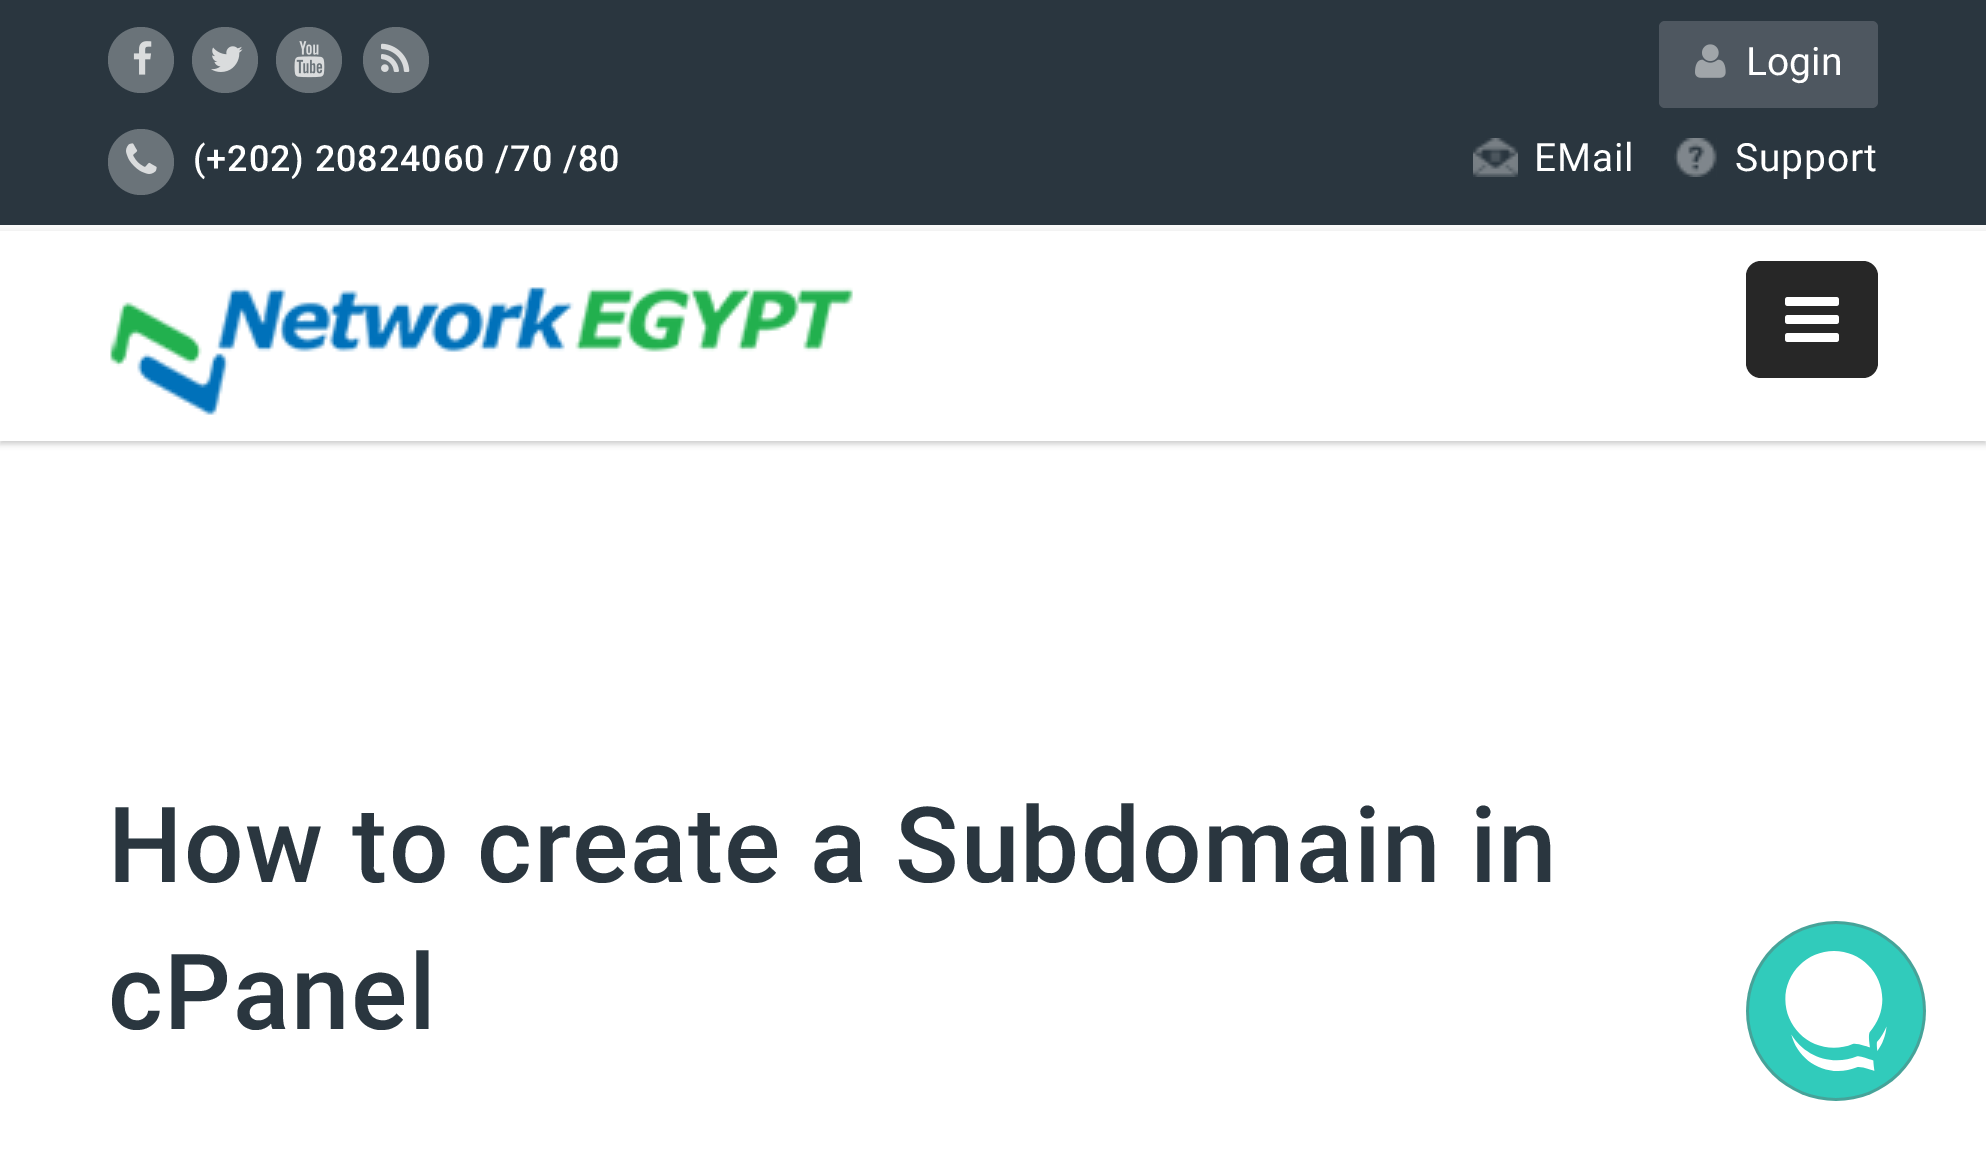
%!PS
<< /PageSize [1986 1159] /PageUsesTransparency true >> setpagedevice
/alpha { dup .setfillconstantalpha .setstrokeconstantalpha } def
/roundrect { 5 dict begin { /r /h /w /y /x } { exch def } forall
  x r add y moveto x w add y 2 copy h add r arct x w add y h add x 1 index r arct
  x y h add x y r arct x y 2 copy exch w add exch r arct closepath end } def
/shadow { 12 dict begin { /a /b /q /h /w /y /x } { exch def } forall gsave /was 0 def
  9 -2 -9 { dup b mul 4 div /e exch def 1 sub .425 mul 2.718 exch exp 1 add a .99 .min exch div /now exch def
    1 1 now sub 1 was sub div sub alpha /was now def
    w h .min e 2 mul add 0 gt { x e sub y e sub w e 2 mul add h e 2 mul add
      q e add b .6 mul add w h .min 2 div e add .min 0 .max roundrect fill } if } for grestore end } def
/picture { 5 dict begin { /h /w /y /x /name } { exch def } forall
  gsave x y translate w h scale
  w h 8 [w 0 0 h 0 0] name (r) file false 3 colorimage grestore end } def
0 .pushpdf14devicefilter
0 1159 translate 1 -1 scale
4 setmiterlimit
0.98 setgray
0 0 1986 1159 rectfill
0.165 0.212 0.247 setrgbcolor
0 0 1986 225 rectfill
0.416 0.451 0.475 setrgbcolor
newpath 141 60 33 0 360 arc closepath fill
(img1.rgb) 133 41 19 34 picture
newpath 225 60 33 0 360 arc closepath fill
(img2.rgb) 211 46 32 26 picture
newpath 309 60 33 0 360 arc closepath fill
(img3.rgb) 294 41 31 37 picture
newpath 396 60 33 0 360 arc closepath fill
(img4.rgb) 381 43 29 29 picture
0.306 0.341 0.376 setrgbcolor
1659 21 219 87 6 roundrect fill
(img5.rgb) 1695 44 31 34 picture
/Roboto-Regular [39 0 0 -39 0 0] selectfont
1 setgray
1746 75 moveto (Login) show
0.416 0.451 0.475 setrgbcolor
newpath 141 162 33 0 360 arc closepath fill
(img6.rgb) 126 143 31 31 picture
/Roboto-Medium [36 0 0 -36 0 0] selectfont
1 setgray
193 171 moveto 0.9 0 (\(+202\) 20824060 /70 /80) ashow
(img7.rgb) 1473 138 45 39 picture
/Roboto-Regular [39 0 0 -39 0 0] selectfont
1534 171 moveto 0.9 0 (EMail) ashow
(img8.rgb) 1674 138 43 39 picture
1735 171 moveto 0.9 0 (Support) ashow
0 441 1986 718 rectfill
0 setgray
0 234 1986 210 0 3 0.2 shadow
1 setgray
0 231 1986 210 rectfill
(img9.rgb) 110 287 743 128 picture
0.153 setgray
1746 261 132 117 15 roundrect fill
(img10.rgb) 1785 297 54 45 picture
/Roboto-Medium [105 0 0 -105 0 0] selectfont
0.165 0.212 0.247 setrgbcolor
108 882 moveto 1.5 0 (How to create a Subdomain in) ashow
108 1029 moveto 1.5 0 (cPanel) ashow
(img11.rgb) 1746 921 180 180 picture
.poppdf14devicefilter showpage
